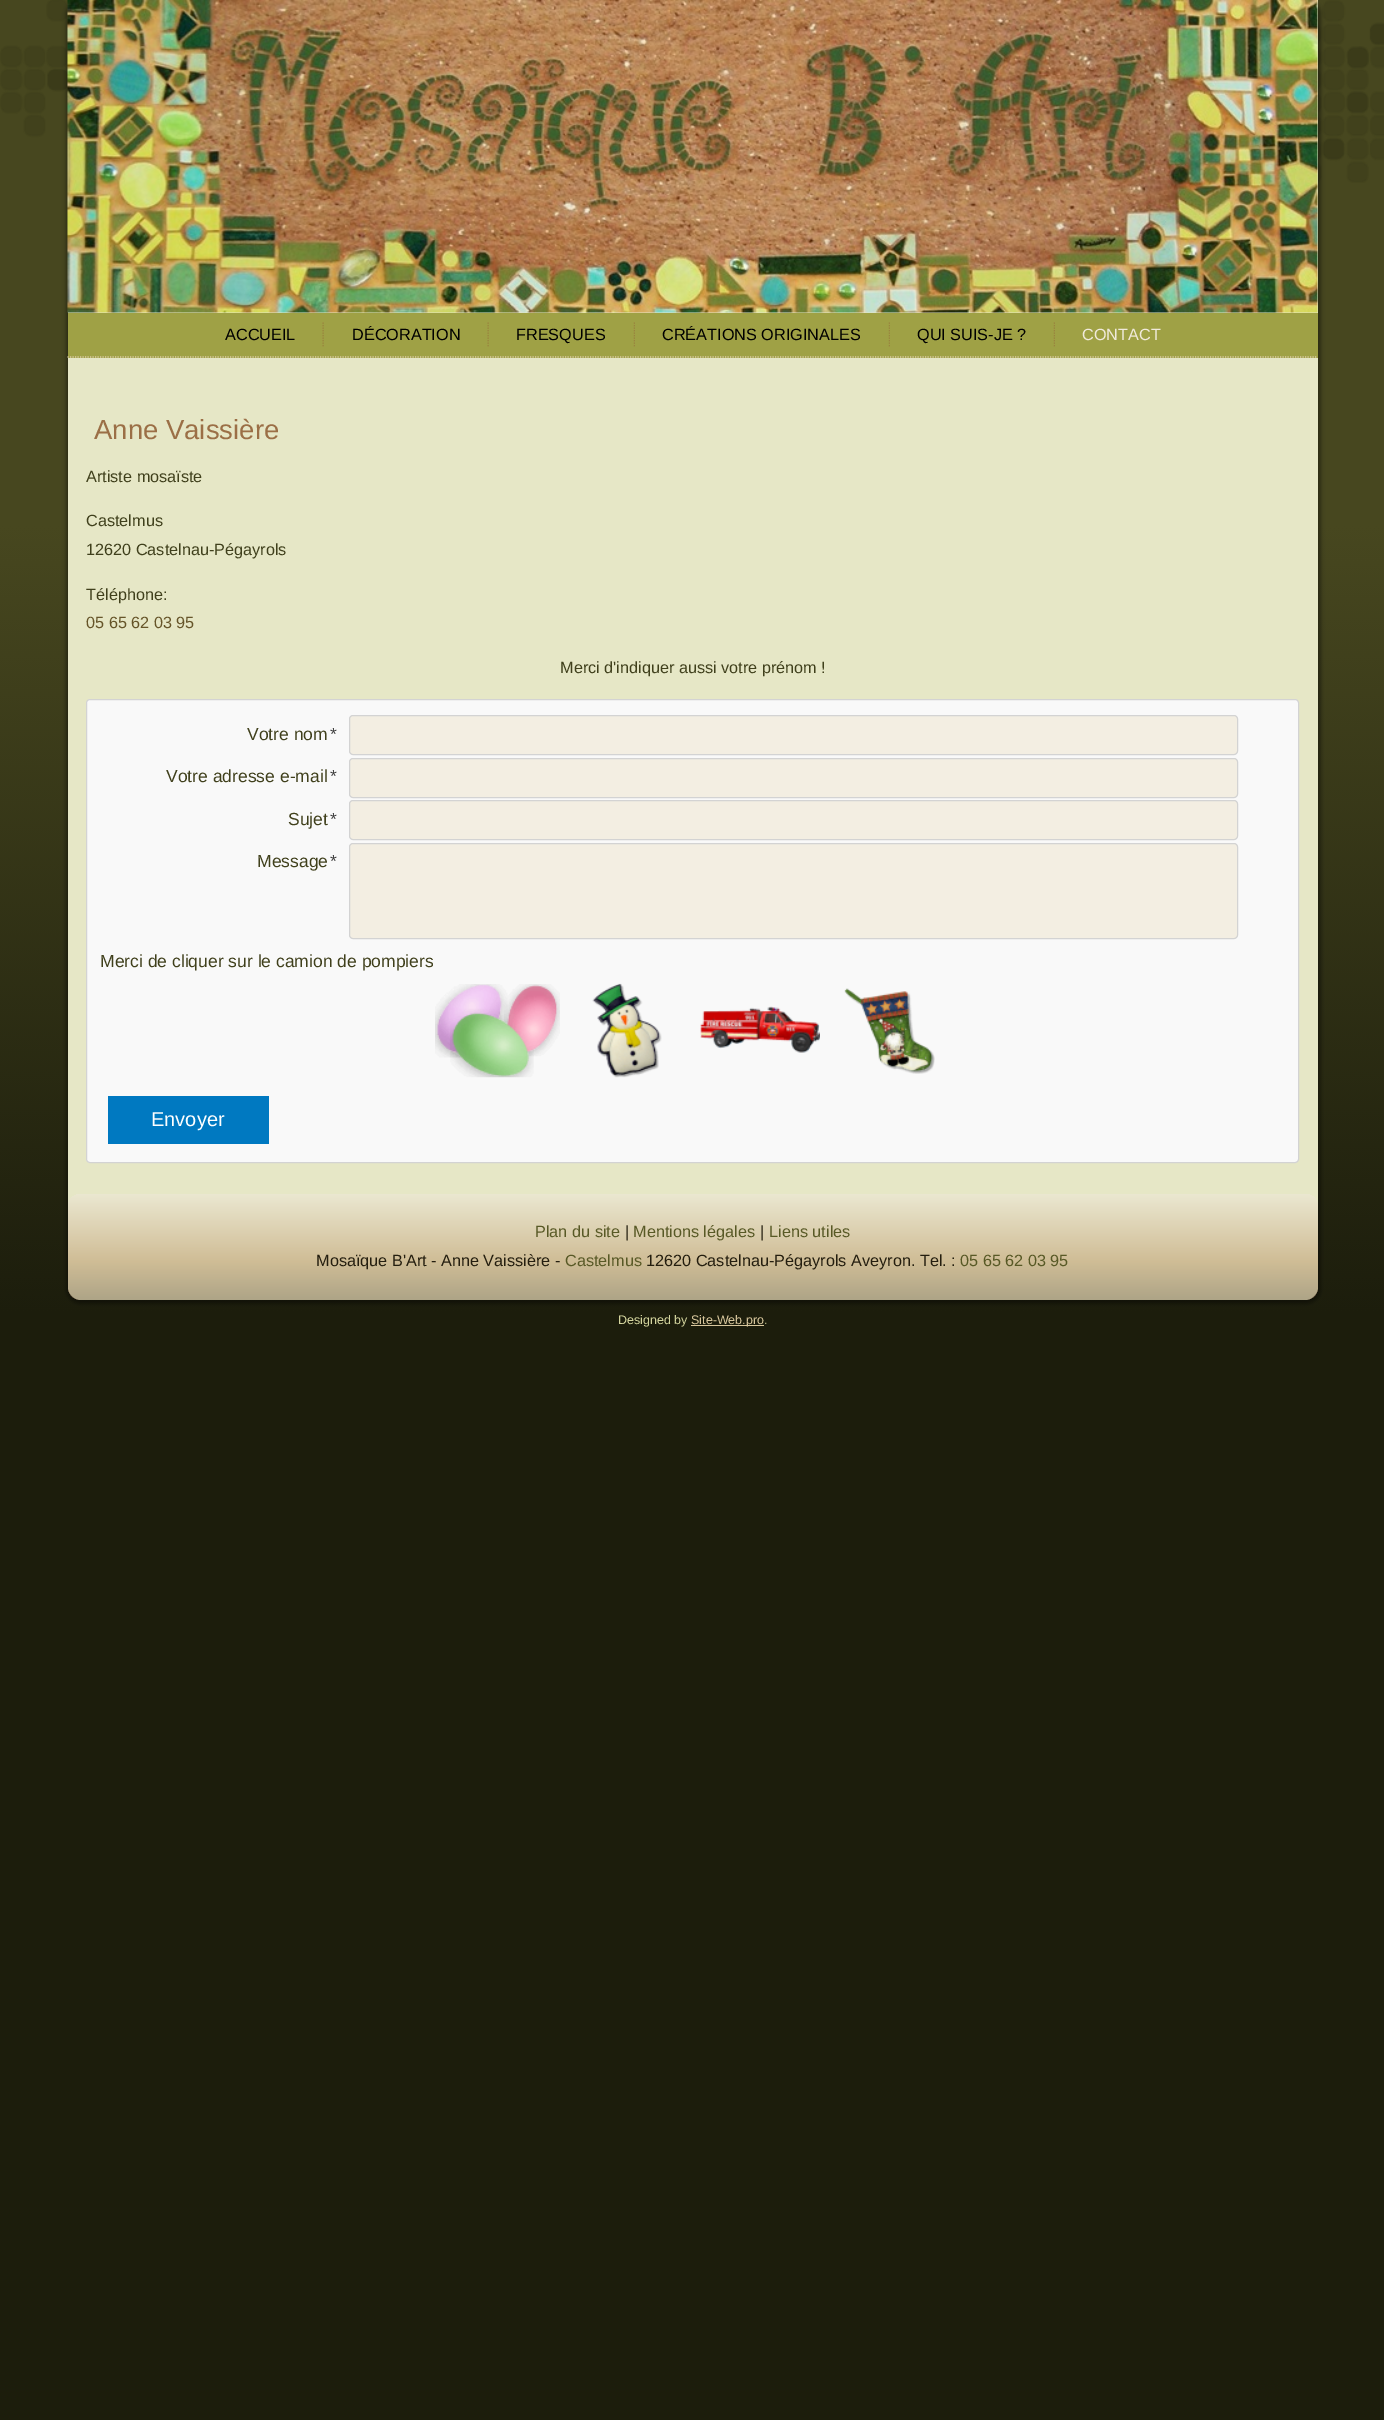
%!PS
<< /PageSize [1384 2420] /PageUsesTransparency true >> setpagedevice
/alpha { dup .setfillconstantalpha .setstrokeconstantalpha } def
/roundrect { 5 dict begin { /r /h /w /y /x } { exch def } forall
  x r add y moveto x w add y 2 copy h add r arct x w add y h add x 1 index r arct
  x y h add x y r arct x y 2 copy exch w add exch r arct closepath end } def
/shadow { 12 dict begin { /a /b /q /h /w /y /x } { exch def } forall gsave /was 0 def
  9 -2 -9 { dup b mul 4 div /e exch def 1 sub .425 mul 2.718 exch exp 1 add a .99 .min exch div /now exch def
    1 1 now sub 1 was sub div sub alpha /was now def
    w h .min e 2 mul add 0 gt { x e sub y e sub w e 2 mul add h e 2 mul add
      q e add b .6 mul add w h .min 2 div e add .min 0 .max roundrect fill } if } for grestore end } def
/picture { 5 dict begin { /h /w /y /x /name } { exch def } forall
  gsave x y translate w h scale
  w h 8 [w 0 0 h 0 0] name (r) file false 3 colorimage grestore end } def
0 .pushpdf14devicefilter
0 2420 translate 1 -1 scale
4 setmiterlimit
1 setgray
0 0 1384 2420 rectfill
(img1.rgb) 0 0 1384 2420 picture
0 setgray
66 -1 1255 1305 15 2 0.4 shadow
0.902 0.906 0.776 setrgbcolor
newpath 68 0 moveto 1318 0 lineto 1318 1287 lineto 1318 1294 1312 1300 1305 1300 curveto 81 1300 lineto 74 1300 68 1294 68 1287 curveto closepath fill
(img2.rgb) 67 0 1251 313 picture
0.624 0.631 0.271 setrgbcolor
68 313 1250 45 rectfill
0.863 0.804 0.655 setrgbcolor
1.2 setlinewidth
[1.25 1.25] 0 setdash
newpath 67.5 357 moveto 1317.5 357 lineto stroke
/LiberationSans-Regular [16.25 0 0 -16.25 0 0] selectfont
0 setgray
225 340 moveto (ACCUEIL) show
(img3.rgb) 322 322 2 25 picture
352 340 moveto (DÉCORATION) show
(img3.rgb) 487 322 2 25 picture
516 340 moveto (FRESQUES) show
(img4.rgb) 633 322 2 25 picture
662 340 moveto (CRÉATIONS ORIGINALES) show
(img4.rgb) 888 322 2 25 picture
917 340 moveto (QUI SUIS-JE ?) show
(img4.rgb) 1053 322 2 25 picture
0.941 0.918 0.859 setrgbcolor
1082 340 moveto (CONTACT) show
/LiberationSans-Regular [27.5 0 0 -27.5 0 0] selectfont
0.608 0.435 0.275 setrgbcolor
94 439 moveto (Anne Vaissière) show
/LiberationSans-Regular [16.25 0 0 -16.25 0 0] selectfont
0.251 0.251 0.11 setrgbcolor
86 482 moveto (Artiste mosaïste) show
86 526 moveto (Castelmus) show
86 555 moveto (12620 Castelnau-Pégayrols) show
86 600 moveto (Téléphone:) show
0.4 0.333 0.161 setrgbcolor
86 628 moveto (05 65 62 03 95) show
0.251 0.251 0.11 setrgbcolor
560 673 moveto (Merci d'indiquer aussi votre prénom !) show
0.976 setgray
86.5 699.5 1212 463 3.5 roundrect gsave fill grestore
0.827 setgray
1 setlinewidth
[] 0 setdash
stroke
/LiberationSans-Regular [17.5 0 0 -17.5 0 0] selectfont
0.251 0.251 0.11 setrgbcolor
247 740 moveto (Votre nom) show
0.267 setgray
330 740 moveto (*) show
0.953 0.933 0.886 setrgbcolor
349.5 715.5 888 39 3.5 roundrect gsave fill grestore
0.827 setgray
stroke
0.251 0.251 0.11 setrgbcolor
166 782 moveto (Votre adresse e-mail) show
0.267 setgray
330 782 moveto (*) show
0.953 0.933 0.886 setrgbcolor
349.5 758.5 888 39 3.5 roundrect gsave fill grestore
0.827 setgray
stroke
0.251 0.251 0.11 setrgbcolor
288 825 moveto (Sujet) show
0.267 setgray
330 825 moveto (*) show
0.953 0.933 0.886 setrgbcolor
349.5 800.5 888 39 3.5 roundrect gsave fill grestore
0.827 setgray
stroke
0.251 0.251 0.11 setrgbcolor
257 867 moveto (Message) show
0.267 setgray
330 867 moveto (*) show
0.953 0.933 0.886 setrgbcolor
349.5 843.5 888 95 3.5 roundrect gsave fill grestore
0.827 setgray
stroke
0.251 0.251 0.11 setrgbcolor
100 967 moveto (Merci de cliquer sur le camion de pompiers) show
(img5.rgb) 435 984 125 94 picture
(img6.rgb) 592 983 70 95 picture
(img7.rgb) 700 1006 120 47 picture
(img8.rgb) 844 988 91 86 picture
0 0.475 0.757 setrgbcolor
108 1096 161 48 rectfill
/LiberationSans-Regular [20 0 0 -20 0 0] selectfont
1 setgray
151 1126 moveto (Envoyer) show
0.41 alpha
gsave 68 1194 1250 106 13 roundrect clip newpath
<< /ShadingType 2 /ColorSpace /DeviceRGB /Coords [693 1194 693 1300] /Extend [true true] /Function << /FunctionType 3 /Domain [0 1] /Functions [<< /FunctionType 2 /Domain [0 1] /C0 [0.945 0.91 0.878] /C1 [0.686 0.502 0.314] /N 1 >> << /FunctionType 2 /Domain [0 1] /C0 [0.686 0.502 0.314] /C1 [0.357 0.259 0.165] /N 1 >>] /Bounds [0.63] /Encode [0 1 0 1] >> >> shfill grestore
/LiberationSans-Regular [16.25 0 0 -16.25 0 0] selectfont
1 alpha
0.345 0.349 0.149 setrgbcolor
535 1237 moveto (Plan du site) show
0.141 0.118 0.059 setrgbcolor
625 1237 moveto (|) show
0.345 0.349 0.149 setrgbcolor
633 1237 moveto (Mentions légales) show
0.141 0.118 0.059 setrgbcolor
760 1237 moveto (|) show
0.345 0.349 0.149 setrgbcolor
769 1237 moveto (Liens utiles) show
0.141 0.118 0.059 setrgbcolor
316 1266 moveto (Mosaïque B'Art - Anne Vaissière -) show
0.345 0.349 0.149 setrgbcolor
565 1266 moveto (Castelmus) show
0.141 0.118 0.059 setrgbcolor
646 1266 moveto (12620 Castelnau-Pégayrols Aveyron. Tel. :) show
0.345 0.349 0.149 setrgbcolor
960 1266 moveto (05 65 62 03 95) show
/LiberationSans-Regular [12.5 0 0 -12.5 0 0] selectfont
0.835 0.839 0.624 setrgbcolor
618 1324 moveto (Designed by) show
0.847 0.78 0.616 setrgbcolor
691 1325 73 1 rectfill
691 1324 moveto (Site-Web.pro) show
0.835 0.839 0.624 setrgbcolor
764 1324 moveto (.) show
.poppdf14devicefilter showpage
